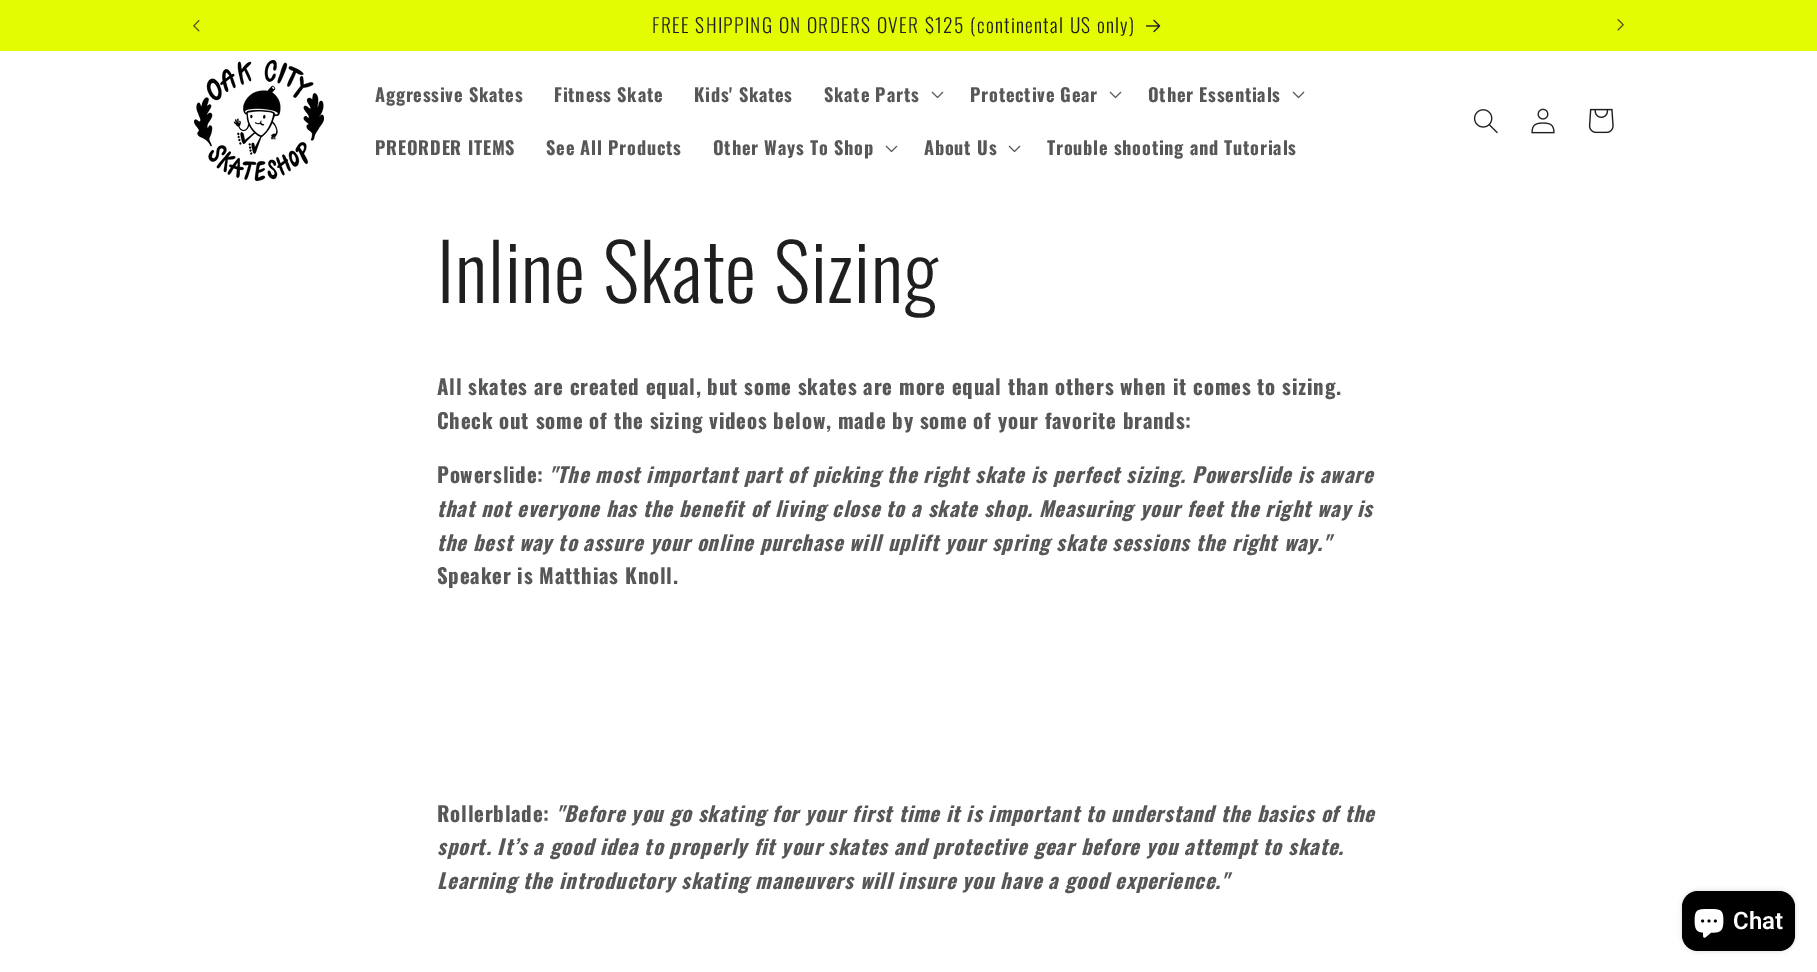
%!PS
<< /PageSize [1817 972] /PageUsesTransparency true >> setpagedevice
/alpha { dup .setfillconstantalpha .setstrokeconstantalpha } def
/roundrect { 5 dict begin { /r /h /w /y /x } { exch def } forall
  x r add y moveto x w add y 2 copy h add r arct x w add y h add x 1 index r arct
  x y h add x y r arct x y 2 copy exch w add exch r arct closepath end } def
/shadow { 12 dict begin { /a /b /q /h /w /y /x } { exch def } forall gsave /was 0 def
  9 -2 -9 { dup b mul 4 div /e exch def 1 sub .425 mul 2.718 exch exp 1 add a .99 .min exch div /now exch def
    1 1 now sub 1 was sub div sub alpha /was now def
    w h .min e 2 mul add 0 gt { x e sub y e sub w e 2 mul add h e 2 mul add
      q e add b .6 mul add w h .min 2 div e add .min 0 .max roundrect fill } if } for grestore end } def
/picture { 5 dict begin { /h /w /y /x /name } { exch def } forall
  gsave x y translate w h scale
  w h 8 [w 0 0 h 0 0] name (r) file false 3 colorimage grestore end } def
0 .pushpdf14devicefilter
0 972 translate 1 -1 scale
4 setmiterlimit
1 setgray
0 0 1817 972 rectfill
0.89 0.988 0.008 setrgbcolor
0 0 1817 51 rectfill
(img1.rgb) 193 20 7 12 picture
/Oswald-Light [19.5 0 0 -19.5 0 0] selectfont
0.122 0.122 0.129 setrgbcolor
652 33 moveto 1.3 0 (FREE SHIPPING ON ORDERS OVER $125 \(continental US only\)) ashow
(img2.rgb) 1146 19 15 14 picture
(img3.rgb) 1617 19 7 12 picture
(img4.rgb) 194 60 130 121 picture
/Oswald-Bold [18.25 0 0 -18.25 0 0] selectfont
0.341 0.341 0.349 setrgbcolor
375 102 moveto 0.78 0 (Aggressive Skates) ashow
554 102 moveto 0.78 0 (Fitness Skate) ashow
694 102 moveto 0.78 0 (Kids' Skates) ashow
824 102 moveto 0.78 0 (Skate Parts) ashow
(img5.rgb) 931 91 13 8 picture
970 102 moveto 0.78 0 (Protective Gear) ashow
(img5.rgb) 1109 91 13 8 picture
1148 102 moveto 0.78 0 (Other Essentials) ashow
(img5.rgb) 1292 91 13 8 picture
375 155 moveto 0.78 0 (PREORDER ITEMS) ashow
546 155 moveto 0.78 0 (See All Products) ashow
713 155 moveto 0.78 0 (Other Ways To Shop) ashow
(img5.rgb) 885 145 13 8 picture
924 155 moveto 0.78 0 (About Us) ashow
(img5.rgb) 1008 145 13 8 picture
1047 155 moveto 0.78 0 (Trouble shooting and Tutorials) ashow
(img6.rgb) 1473 109 25 25 picture
(img7.rgb) 1531 108 24 26 picture
(img8.rgb) 1588 108 26 26 picture
/Oswald-Light [78 0 0 -78 0 0] selectfont
0.122 0.122 0.129 setrgbcolor
437 303 moveto 0.9 0 (Inline Skate Sizing) ashow
/Oswald-Bold [20.8 0 0 -20.8 0 0] selectfont
0.341 0.341 0.349 setrgbcolor
437 395 moveto 0.78 0 (All skates are created equal, but some skates are more equal than others when it comes to sizing.) ashow
437 429 moveto 0.78 0 (Check out some of the sizing videos below, made by some of your favorite brands:) ashow
437 483 moveto 0.78 0 (Powerslide:) ashow
/Oswald-BoldItalic [20.8 0 0 -20.8 0 0] selectfont
549 483 moveto 0.78 0 ("The most important part of picking the right skate is perfect sizing. Powerslide is aware) ashow
437 517 moveto 0.78 0 (that not everyone has the benefit of living close to a skate shop. Measuring your feet the right way is) ashow
437 551 moveto 0.78 0 (the best way to assure your online purchase will uplift your spring skate sessions the right way.") ashow
/Oswald-Bold [20.8 0 0 -20.8 0 0] selectfont
437 584 moveto 0.78 0 (Speaker is Matthias Knoll.) ashow
437 822 moveto 0.78 0 (Rollerblade:) ashow
/Oswald-BoldItalic [20.8 0 0 -20.8 0 0] selectfont
556 822 moveto 0.78 0 ("Before you go skating for your first time it is important to understand the basics of the) ashow
437 855 moveto 0.78 0 (sport. It’s a good idea to properly fit your skates and protective gear before you attempt to skate.) ashow
437 889 moveto 0.78 0 (Learning the introductory skating maneuvers will insure you have a good experience.") ashow
0 setgray
1682 891 113 60 16 2.5 0.15 shadow
1682 891 113 60 16 roundrect fill
(img9.rgb) 1694 909 30 29 picture
/Roboto-SemiBold [24 0 0 -24 0 0] selectfont
1 setgray
1733 929 moveto (Chat) show
.poppdf14devicefilter showpage
